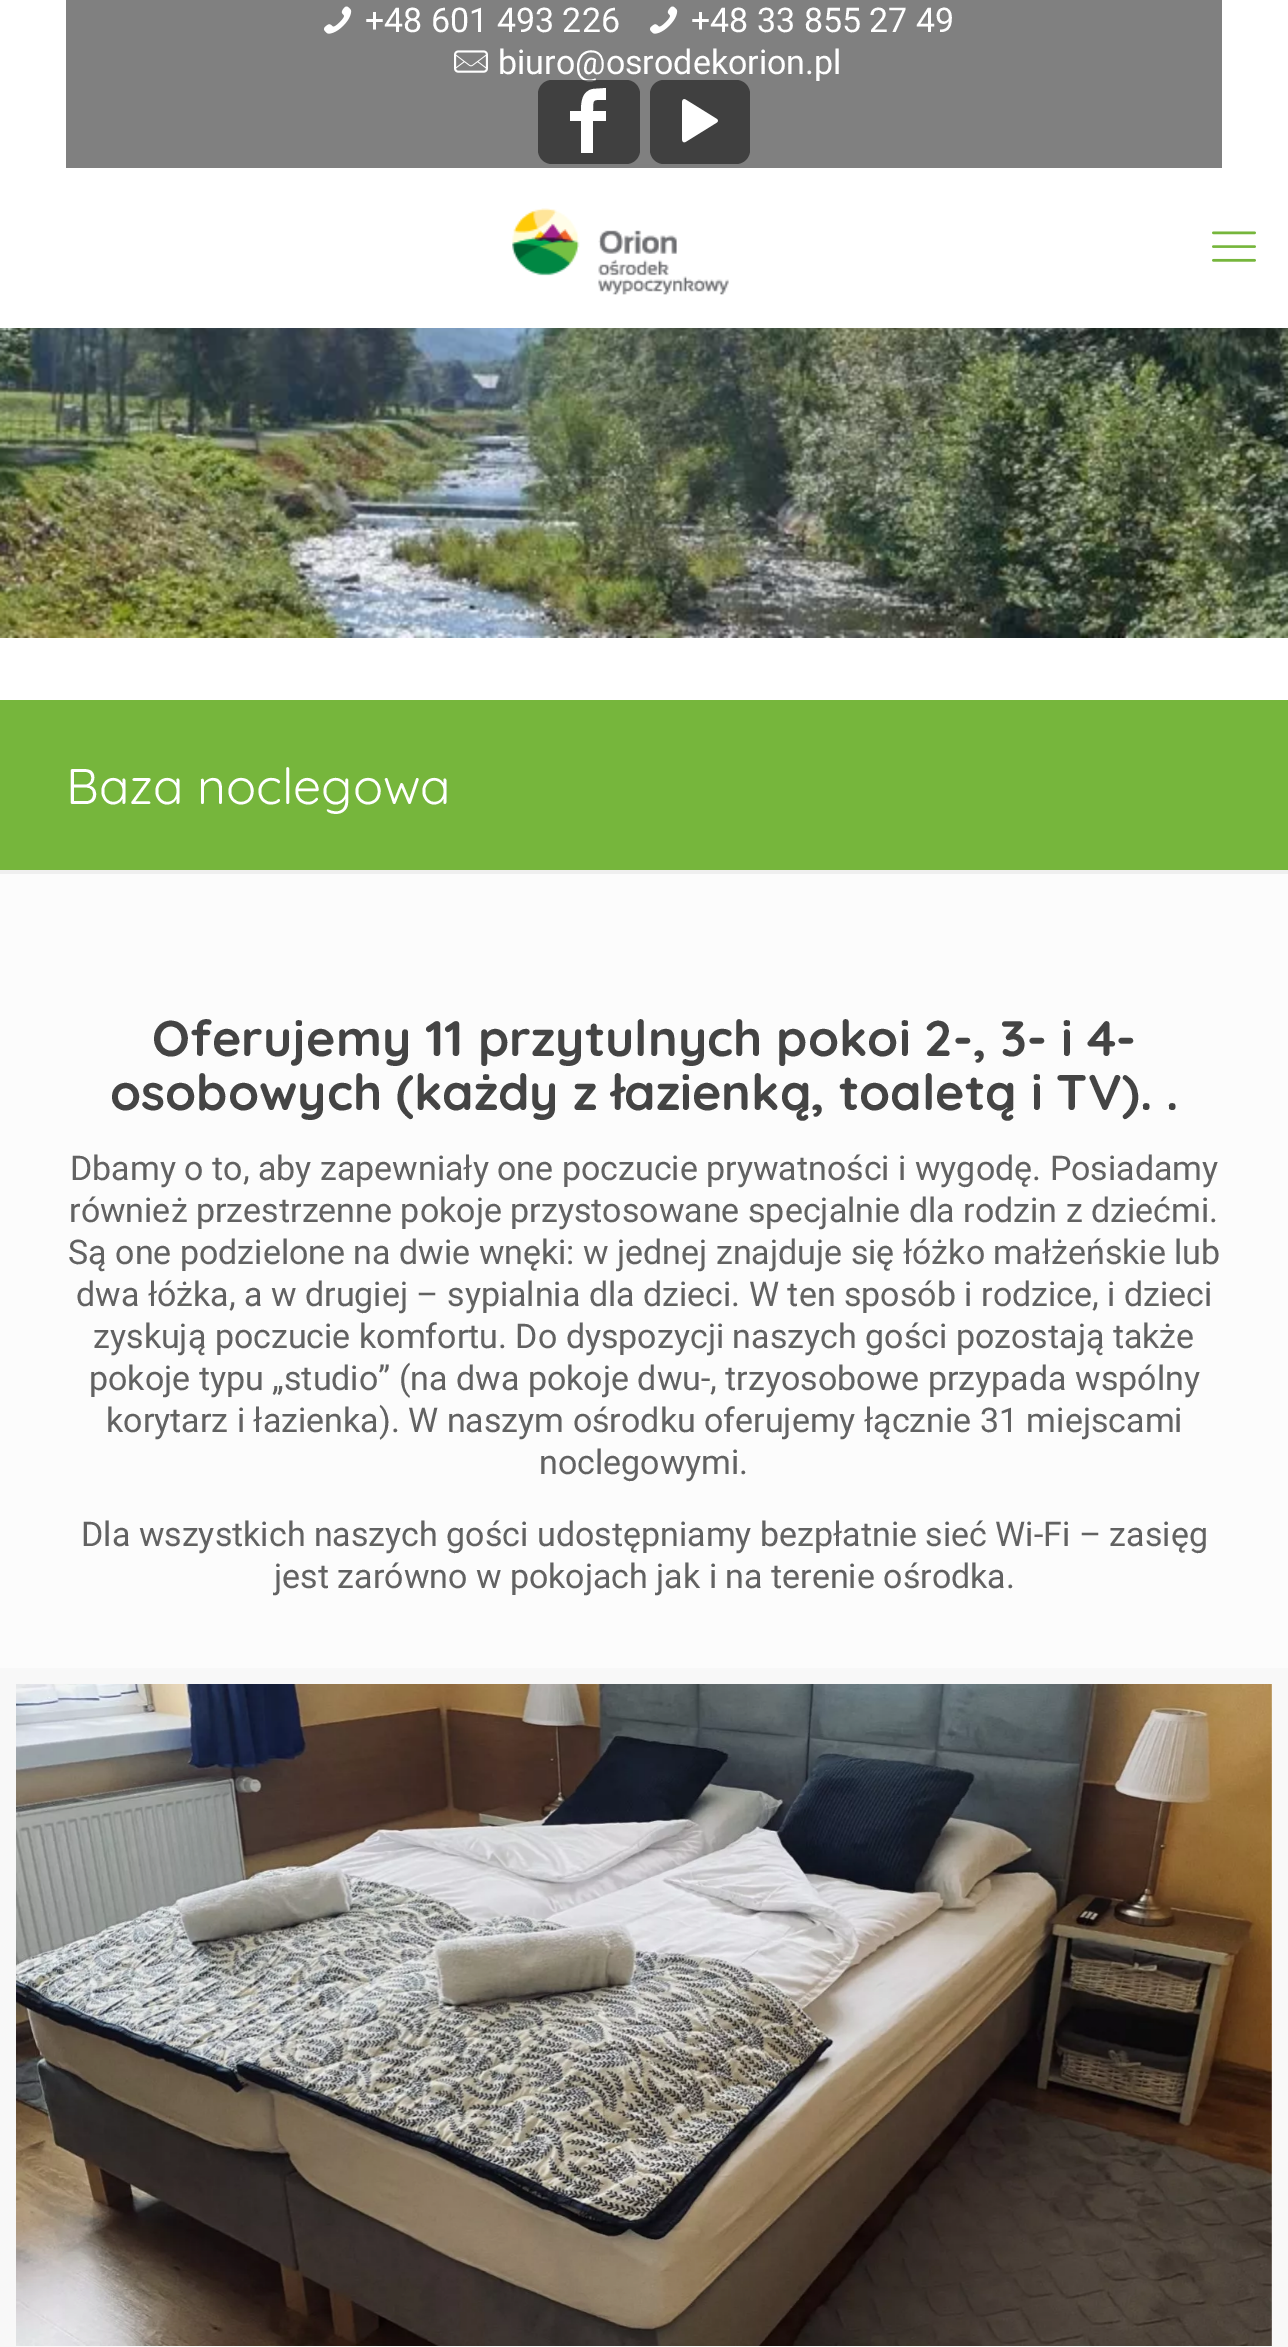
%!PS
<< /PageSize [1288 2347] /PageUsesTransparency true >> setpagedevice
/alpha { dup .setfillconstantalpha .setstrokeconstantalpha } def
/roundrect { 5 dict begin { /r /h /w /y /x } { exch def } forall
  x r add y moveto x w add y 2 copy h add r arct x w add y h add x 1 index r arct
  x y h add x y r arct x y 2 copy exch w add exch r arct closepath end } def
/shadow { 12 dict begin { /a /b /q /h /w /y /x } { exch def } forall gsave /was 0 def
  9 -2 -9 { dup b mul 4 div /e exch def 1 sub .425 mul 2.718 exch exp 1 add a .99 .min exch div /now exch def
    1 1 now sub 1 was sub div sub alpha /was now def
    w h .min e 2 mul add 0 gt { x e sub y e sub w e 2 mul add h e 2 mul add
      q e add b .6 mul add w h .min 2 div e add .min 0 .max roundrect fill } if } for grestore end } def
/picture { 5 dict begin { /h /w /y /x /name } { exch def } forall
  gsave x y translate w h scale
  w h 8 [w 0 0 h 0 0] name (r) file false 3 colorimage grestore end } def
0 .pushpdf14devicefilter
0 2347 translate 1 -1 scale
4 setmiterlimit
0.988 setgray
0 0 1288 2347 rectfill
1 setgray
0 638 1288 62 rectfill
(img1.rgb) 0 328 1288 310 picture
0 0 1288 328 rectfill
0.502 setgray
66 0 1156 168 rectfill
(img2.rgb) 324 6 28 28 picture
/Roboto-Regular [34 0 0 -34 0 0] selectfont
1 setgray
365 32 moveto (+48 601 493 226) show
(img2.rgb) 650 6 28 28 picture
691 32 moveto (+48 33 855 27 49) show
(img3.rgb) 454 50 34 23 picture
498 74 moveto (biuro@osrodekorion.pl) show
0.5 alpha
0 setgray
538 80 102 84 14 roundrect fill
1 alpha
1 setgray
newpath 606 100 moveto 593 100 593 98 593 111 curveto 606 111 lineto 606 121 lineto 593 121 lineto 593 153 lineto 581 153 lineto 581 121 lineto 570 121 lineto 570 111 lineto 581 111 lineto 581 102 582 91 593 89 curveto 606 88 lineto closepath fill
0.251 setgray
650 80 100 84 14 roundrect fill
(img4.rgb) 682 99 36 44 picture
(img5.rgb) 512 208 217 87 picture
(img6.rgb) 1212 231 44 31 picture
0.463 0.714 0.235 setrgbcolor
0 700 1288 170 rectfill
/Quicksand-Regular [50 0 0 -50 0 0] selectfont
1 setgray
66 804 moveto (Baza noclegowa) show
0.937 setgray
0 870 1288 4 rectfill
/Quicksand-Bold [50 0 0 -50 0 0] selectfont
0.267 setgray
152 1056 moveto (Oferujemy 11 przytulnych pokoi 2-, 3- i 4-) show
110 1110 moveto (osobowych \(każdy z łazienką, toaletą i TV\). .) show
/Roboto-Regular [34 0 0 -34 0 0] selectfont
0.384 setgray
70 1180 moveto (Dbamy o to, aby zapewniały one poczucie prywatności i wygodę. Posiadamy) show
69 1222 moveto (również przestrzenne pokoje przystosowane specjalnie dla rodzin z dziećmi.) show
68 1264 moveto (Są one podzielone na dwie wnęki: w jednej znajduje się łóżko małżeńskie lub) show
76 1306 moveto (dwa łóżka, a w drugiej – sypialnia dla dzieci. W ten sposób i rodzice, i dzieci) show
93 1348 moveto (zyskują poczucie komfortu. Do dyspozycji naszych gości pozostają także) show
89 1390 moveto (pokoje typu „studio” \(na dwa pokoje dwu-, trzyosobowe przypada wspólny) show
106 1432 moveto (korytarz i łazienka\). W naszym ośrodku oferujemy łącznie 31 miejscami) show
539 1474 moveto (noclegowymi.) show
81 1546 moveto (Dla wszystkich naszych gości udostępniamy bezpłatnie sieć Wi-Fi – zasięg) show
274 1588 moveto (jest zarówno w pokojach jak i na terenie ośrodka.) show
0.502 setgray
1148 2200 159 120 4 5 1 shadow
0.973 setgray
16 setlinewidth
8 1676 1272 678 rectstroke
(img7.rgb) 16 1684 1256 662 picture
.poppdf14devicefilter showpage
